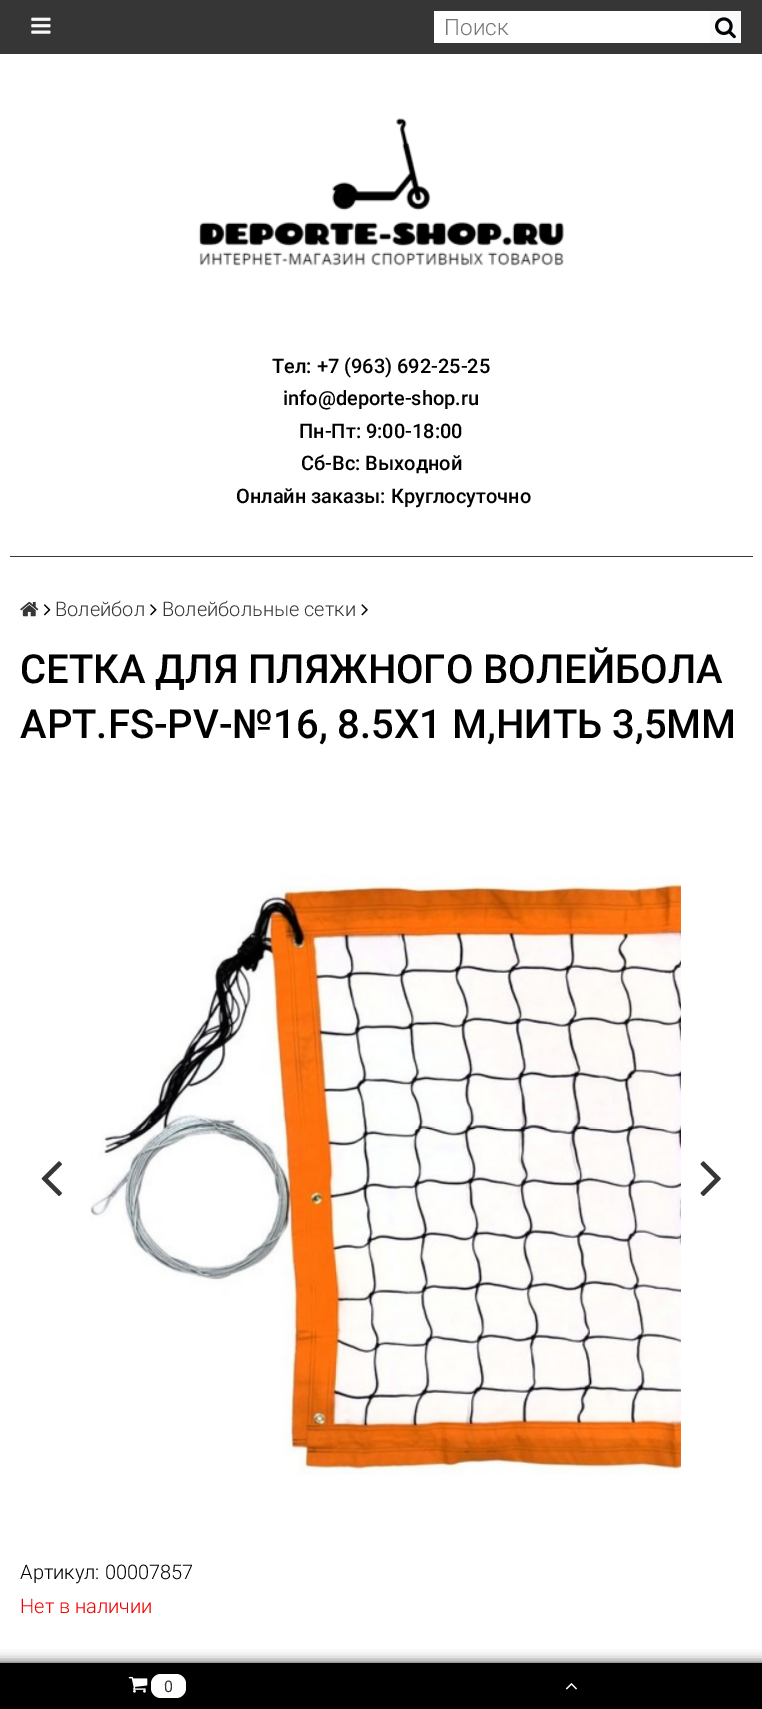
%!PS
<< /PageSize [762 1709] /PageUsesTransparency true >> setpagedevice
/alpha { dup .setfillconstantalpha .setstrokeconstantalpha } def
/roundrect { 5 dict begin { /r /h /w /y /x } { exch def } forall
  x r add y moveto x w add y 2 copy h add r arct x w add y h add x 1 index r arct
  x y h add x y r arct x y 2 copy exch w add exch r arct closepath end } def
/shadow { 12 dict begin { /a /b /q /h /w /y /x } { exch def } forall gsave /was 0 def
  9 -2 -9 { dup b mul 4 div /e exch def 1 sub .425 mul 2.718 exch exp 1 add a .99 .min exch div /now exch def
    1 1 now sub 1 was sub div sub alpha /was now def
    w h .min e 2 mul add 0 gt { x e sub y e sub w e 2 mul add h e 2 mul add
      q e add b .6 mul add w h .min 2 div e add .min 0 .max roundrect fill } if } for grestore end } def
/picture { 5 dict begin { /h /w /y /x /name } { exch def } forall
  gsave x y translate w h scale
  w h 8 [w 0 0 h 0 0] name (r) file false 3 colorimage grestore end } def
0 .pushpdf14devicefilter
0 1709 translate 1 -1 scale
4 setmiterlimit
1 setgray
0 0 762 1709 rectfill
0.212 setgray
0 0 762 54 rectfill
(img1.rgb) 31 17 20 17 picture
1 setgray
434 11 276 32 rectfill
/Roboto-Light [22.5 0 0 -22.5 0 0] selectfont
0.459 setgray
444 35 moveto (Поиск) show
0.973 0.98 0.984 setrgbcolor
710 11 31 32 rectfill
(img2.rgb) 715 17 21 22 picture
(img3.rgb) 198 118 366 148 picture
/Roboto-Medium [20 0 0 -20 0 0] selectfont
0 setgray
272 373 moveto (Тел: +7 \(963\) 692-25-25) show
283 405 moveto (info@deporte-shop.ru) show
299 438 moveto (Пн-Пт: 9:00-18:00) show
301 470 moveto (Сб-Вс: Выходной) show
236 503 moveto (Онлайн заказы: Круглосуточно) show
0.212 setgray
10 556 743 1 rectfill
(img4.rgb) 20 601 19 16 picture
(img5.rgb) 43 604 8 12 picture
/Roboto-Light [20 0 0 -20 0 0] selectfont
55 616 moveto (Волейбол) show
(img6.rgb) 150 604 7 12 picture
162 616 moveto (Волейбольные сетки) show
(img7.rgb) 361 604 7 12 picture
/Roboto-Medium [40 0 0 -40 0 0] selectfont
0 setgray
20 683 moveto (СЕТКА ДЛЯ ПЛЯЖНОГО ВОЛЕЙБОЛА) show
20 738 moveto (АРТ.FS-PV-№16, 8.5Х1 М,НИТЬ 3,5ММ) show
(img8.rgb) 90 875 591 600 picture
(img9.rgb) 41 1161 21 35 picture
(img10.rgb) 700 1161 21 35 picture
/Roboto-Light [20 0 0 -20 0 0] selectfont
20 1579 moveto (Артикул: 00007857) show
0.953 0 0 setrgbcolor
20 1613 moveto (Нет в наличии) show
0.2 setgray
-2 1663 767 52 0 6 1 shadow
0 setgray
0 1663 762 46 rectfill
(img11.rgb) 565 1683 12 7 picture
(img12.rgb) 128 1676 20 17 picture
1 setgray
151 1674 35 24 10 roundrect fill
/Roboto-Regular [16 0 0 -16 0 0] selectfont
0.212 setgray
164 1692 moveto (0) show
.poppdf14devicefilter showpage
